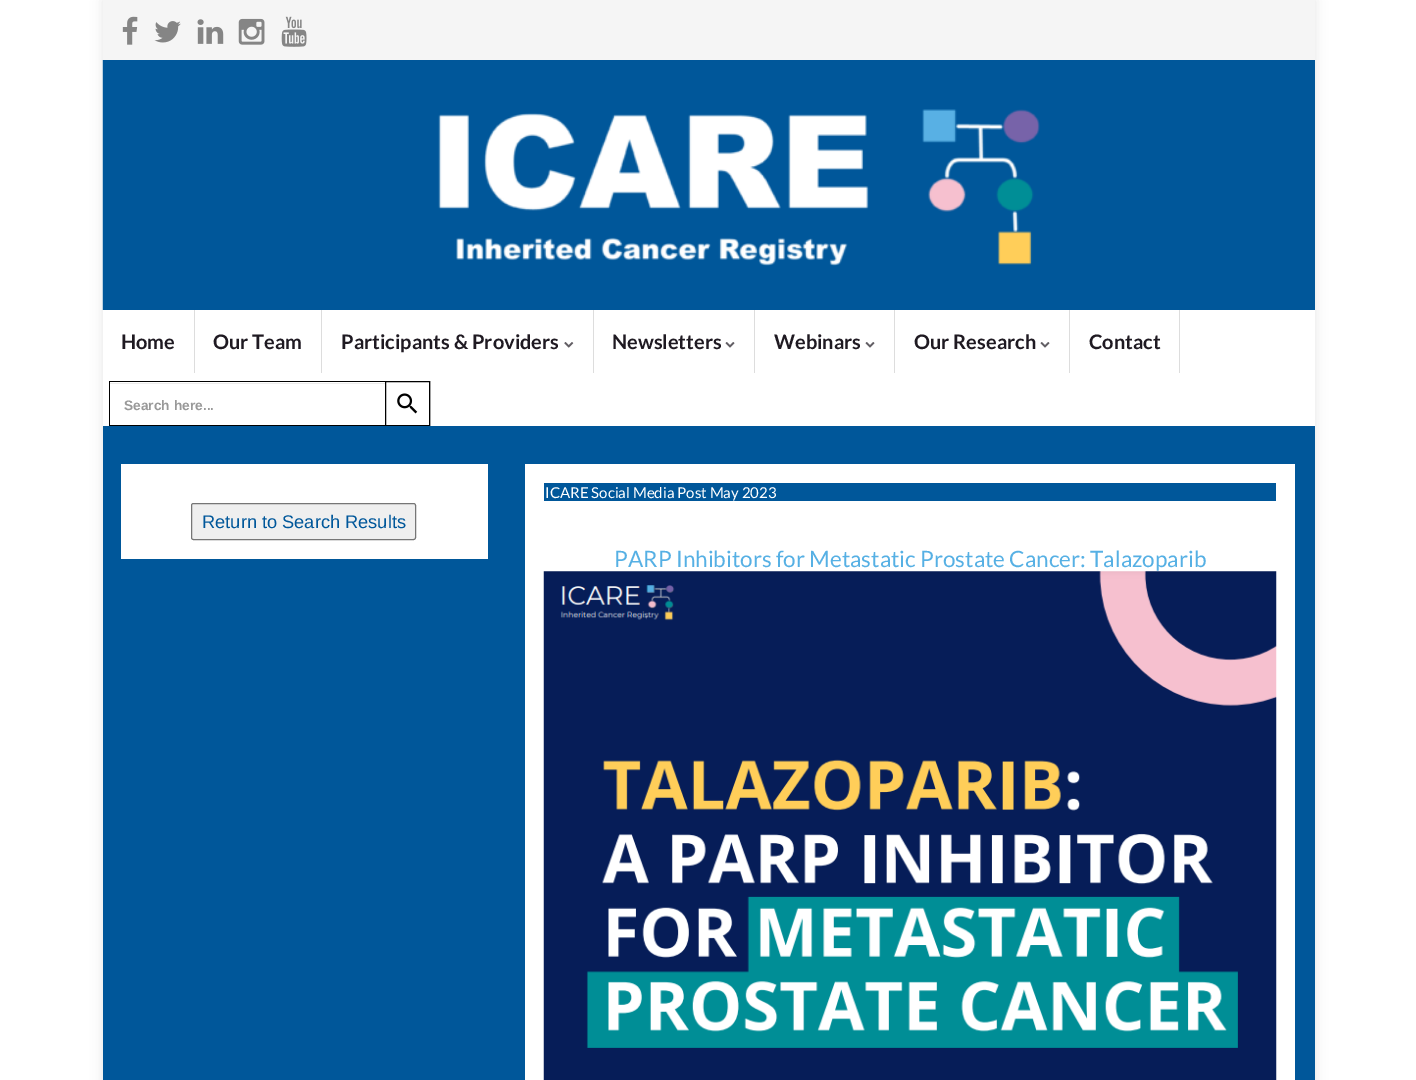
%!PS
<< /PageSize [1416 1080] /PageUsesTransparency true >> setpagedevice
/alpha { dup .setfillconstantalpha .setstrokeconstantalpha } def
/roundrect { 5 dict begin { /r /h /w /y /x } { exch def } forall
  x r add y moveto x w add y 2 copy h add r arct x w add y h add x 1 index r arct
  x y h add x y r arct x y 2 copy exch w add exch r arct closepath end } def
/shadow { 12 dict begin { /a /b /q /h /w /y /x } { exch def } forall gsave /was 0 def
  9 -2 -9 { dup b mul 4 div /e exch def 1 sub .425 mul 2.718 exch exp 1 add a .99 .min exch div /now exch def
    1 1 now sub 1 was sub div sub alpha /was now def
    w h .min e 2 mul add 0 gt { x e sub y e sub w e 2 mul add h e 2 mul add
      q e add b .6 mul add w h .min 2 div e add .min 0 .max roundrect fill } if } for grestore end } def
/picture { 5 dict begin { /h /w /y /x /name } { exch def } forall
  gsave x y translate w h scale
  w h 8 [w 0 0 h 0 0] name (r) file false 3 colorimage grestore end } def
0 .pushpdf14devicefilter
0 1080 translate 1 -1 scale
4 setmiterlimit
1 setgray
0 0 1416 1080 rectfill
gsave
newpath 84 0 moveto 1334 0 lineto 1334 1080 lineto 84 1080 lineto closepath 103 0 moveto 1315 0 lineto 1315 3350 lineto 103 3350 lineto closepath eoclip newpath
0 setgray
103 0 1212 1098 0 6 0.1 shadow
grestore
0.961 setgray
103 0 1212 60 rectfill
(img1.rgb) 122 16 16 29 picture
(img2.rgb) 154 21 27 22 picture
(img3.rgb) 197 19 27 25 picture
(img4.rgb) 238 18 27 27 picture
(img5.rgb) 281 16 26 31 picture
0 0.341 0.604 setrgbcolor
1040 60 275 250 rectfill
(img6.rgb) 102 60 938 250 picture
0.867 setgray
194 310 1 63 rectfill
/Lato-Bold [20 0 0 -20 0 0] selectfont
0.122 0.102 0.133 setrgbcolor
121 349 moveto (Home) show
0.867 setgray
321 310 1 63 rectfill
0.122 0.102 0.133 setrgbcolor
213 349 moveto (Our Team) show
0.867 setgray
593 310 1 63 rectfill
0.122 0.102 0.133 setrgbcolor
341 349 moveto (Participants & Providers) show
(img7.rgb) 564 342 10 6 picture
0.867 setgray
754 310 1 63 rectfill
0.122 0.102 0.133 setrgbcolor
612 349 moveto (Newsletters) show
(img8.rgb) 725 342 10 6 picture
0.867 setgray
894 310 1 63 rectfill
0.122 0.102 0.133 setrgbcolor
774 349 moveto (Webinars) show
(img8.rgb) 865 342 10 6 picture
0.867 setgray
1069 310 1 63 rectfill
0.122 0.102 0.133 setrgbcolor
914 349 moveto (Our Research) show
(img8.rgb) 1040 342 10 6 picture
0.867 setgray
1179 310 1 63 rectfill
0.122 0.102 0.133 setrgbcolor
1089 349 moveto (Contact) show
0.867 setgray
430 381 1 45 rectfill
0.925 setgray
110 383 275 1 rectfill
0 setgray
109 381 276 1 rectfill
109 425 276 1 rectfill
109 381 1 45 rectfill
/LiberationSans-Bold [13.75 0 0 -13.75 0 0] selectfont
0.6 setgray
124 410 moveto (Search here...) show
0 setgray
385.5 381.5 44 44 rectstroke
(img9.rgb) 397 393 21 21 picture
0 0.341 0.604 setrgbcolor
103 426 1212 654 rectfill
1 setgray
121 464 367 95 rectfill
0.937 setgray
191.5 503.5 224 36 2 roundrect gsave fill grestore
0.463 setgray
stroke
/LiberationSans-Regular [18.25 0 0 -18.25 0 0] selectfont
0 0.341 0.604 setrgbcolor
202 528 moveto (Return to Search Results) show
1 setgray
525 464 770 616 rectfill
0 0.341 0.604 setrgbcolor
544 483 732 18 rectfill
/Lato-Regular [15 0 0 -15 0 0] selectfont
1 setgray
545 498 moveto (ICARE Social Media Post May 2023) show
/Lato-Regular [22.5 0 0 -22.5 0 0] selectfont
0.337 0.69 0.894 setrgbcolor
614 567 moveto (PARP Inhibitors for Metastatic Prostate Cancer: Talazoparib) show
(img10.rgb) 543 571 734 509 picture
.poppdf14devicefilter showpage
